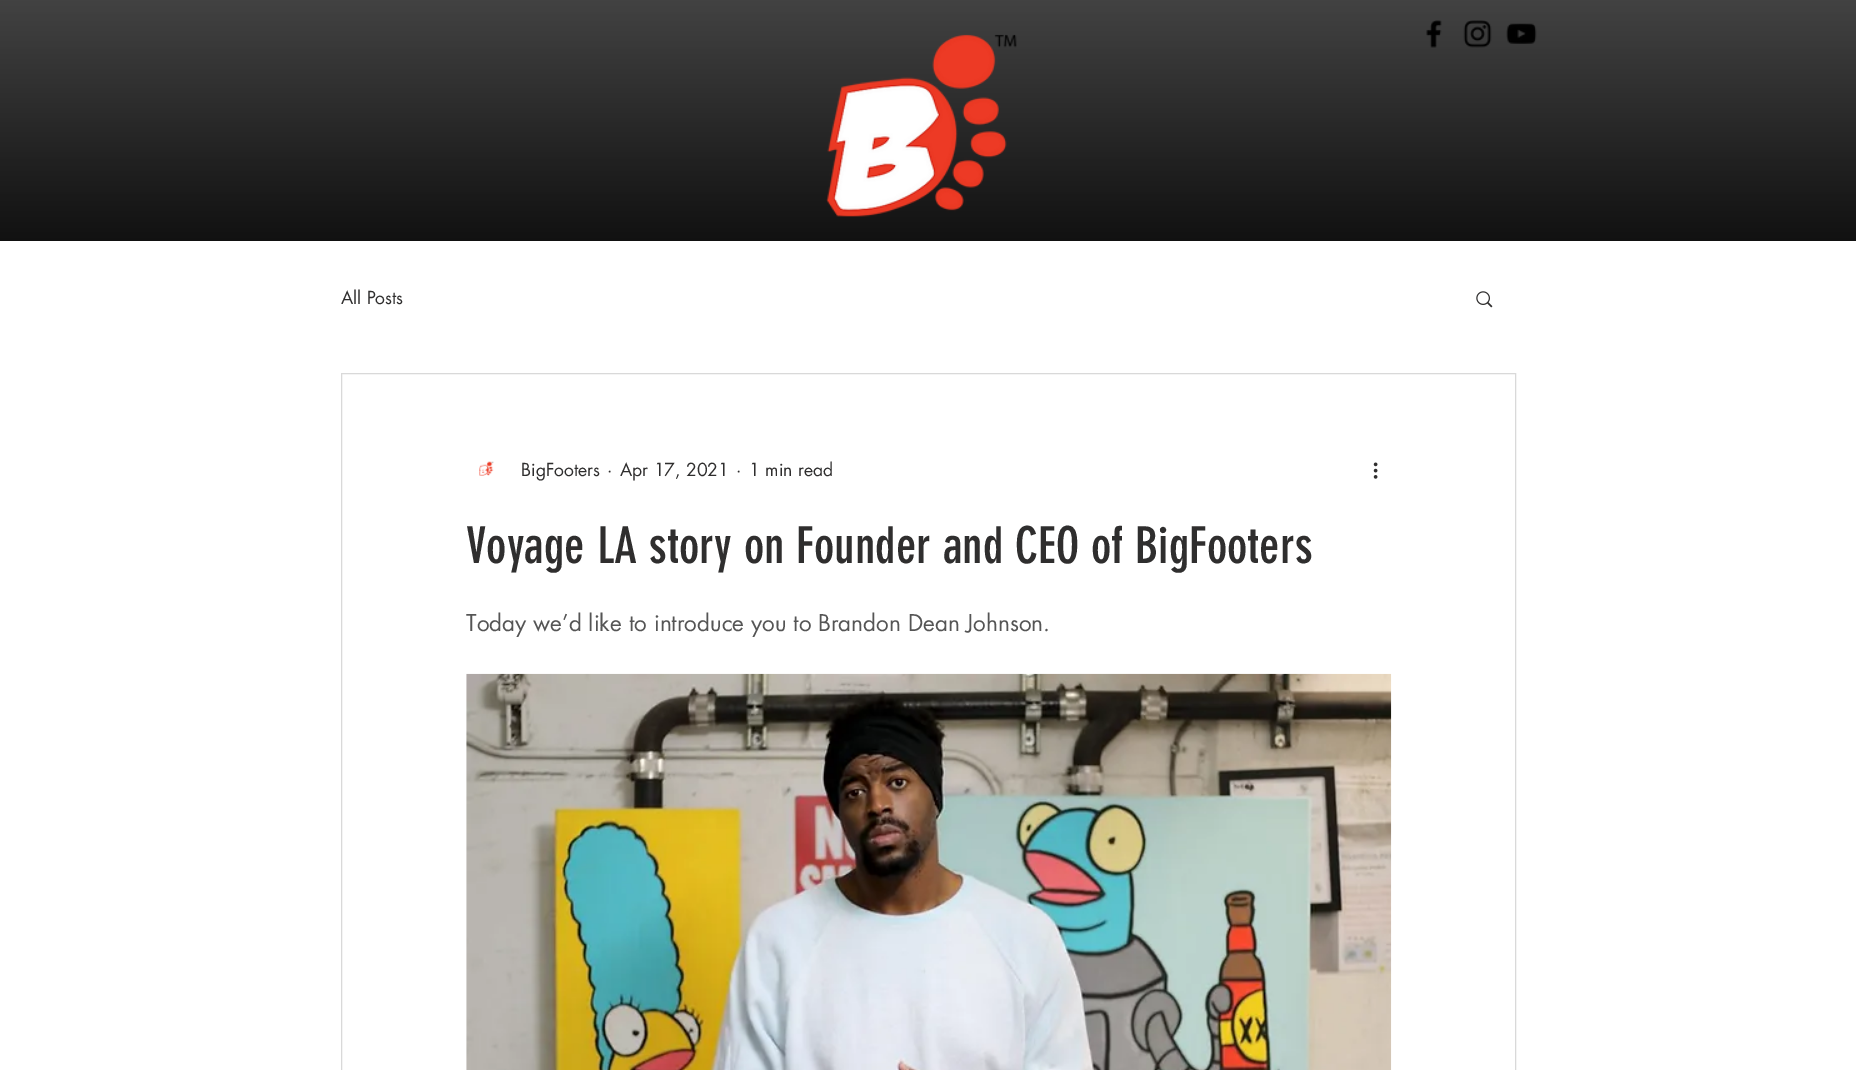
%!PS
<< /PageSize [1856 1070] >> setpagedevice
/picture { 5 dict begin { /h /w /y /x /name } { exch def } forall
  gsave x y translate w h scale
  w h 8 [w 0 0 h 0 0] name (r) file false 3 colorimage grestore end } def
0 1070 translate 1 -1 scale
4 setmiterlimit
1 setgray
0 0 1856 1070 rectfill
0 setgray
0 0 1856 241 rectfill
(img1.rgb) 0 0 1856 241 picture
(img2.rgb) 826 34 191 183 picture
(img3.rgb) 1426 20 16 28 picture
(img4.rgb) 1463 20 29 28 picture
(img5.rgb) 1506 23 31 21 picture
/futura-Regular [17.5 0 0 -17.5 0 0] selectfont
0.184 0.18 0.18 setrgbcolor
341 304 moveto (All Posts) show
(img6.rgb) 1476 291 17 17 picture
0.851 setgray
341.5 373.5 1174 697 rectstroke
(img7.rgb) 479 461 15 15 picture
0.184 0.18 0.18 setrgbcolor
521 476 moveto (BigFooters) show
607 476 moveto (·) show
620 476 moveto (Apr 17, 2021) show
736 476 moveto (·) show
749 476 moveto (1 min read) show
(img8.rgb) 1373 462 5 17 picture
/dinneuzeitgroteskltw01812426-Regular [50 0 0 -50 0 0] selectfont
466 563 moveto (Voyage LA story on Founder and CEO of BigFooters) show
/futura-Regular [22.5 0 0 -22.5 0 0] selectfont
0.333 setgray
466 631 moveto (Today we’d like to introduce you to Brandon Dean Johnson.) show
(img9.rgb) 466 673 926 397 picture
showpage
